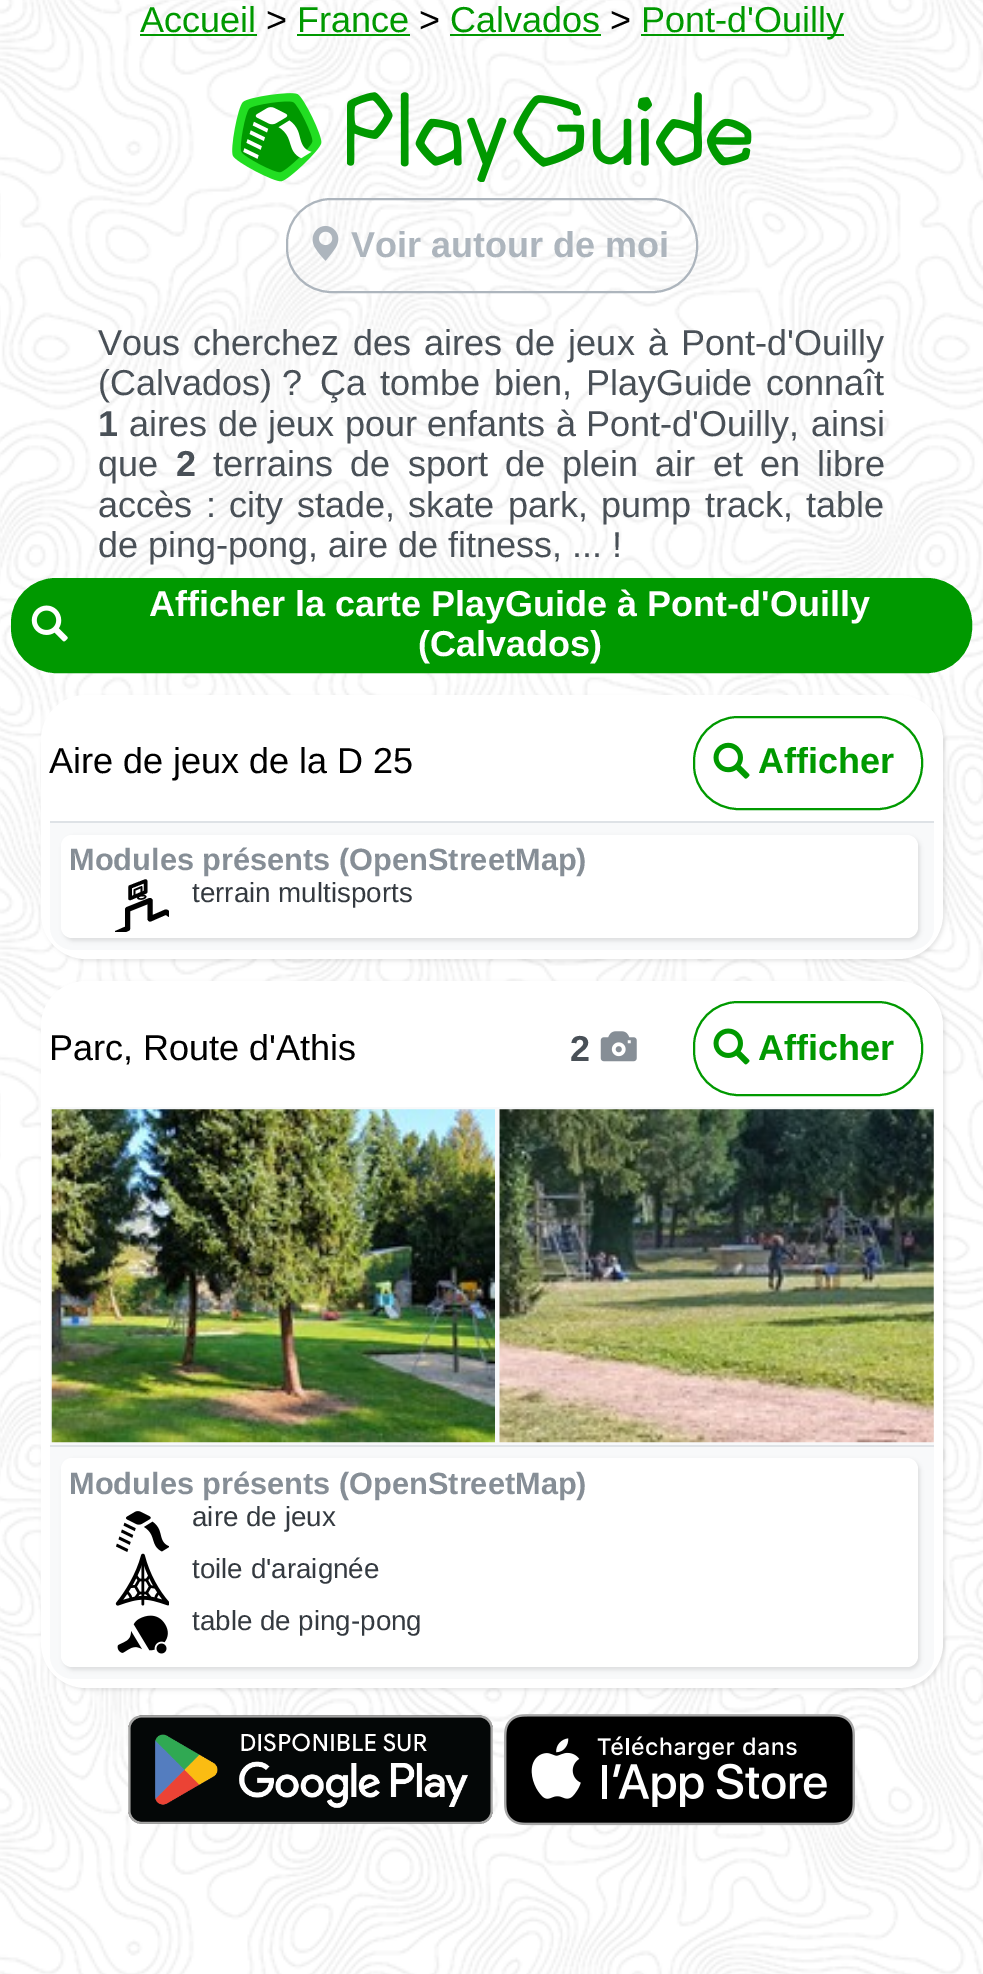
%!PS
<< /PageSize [983 1974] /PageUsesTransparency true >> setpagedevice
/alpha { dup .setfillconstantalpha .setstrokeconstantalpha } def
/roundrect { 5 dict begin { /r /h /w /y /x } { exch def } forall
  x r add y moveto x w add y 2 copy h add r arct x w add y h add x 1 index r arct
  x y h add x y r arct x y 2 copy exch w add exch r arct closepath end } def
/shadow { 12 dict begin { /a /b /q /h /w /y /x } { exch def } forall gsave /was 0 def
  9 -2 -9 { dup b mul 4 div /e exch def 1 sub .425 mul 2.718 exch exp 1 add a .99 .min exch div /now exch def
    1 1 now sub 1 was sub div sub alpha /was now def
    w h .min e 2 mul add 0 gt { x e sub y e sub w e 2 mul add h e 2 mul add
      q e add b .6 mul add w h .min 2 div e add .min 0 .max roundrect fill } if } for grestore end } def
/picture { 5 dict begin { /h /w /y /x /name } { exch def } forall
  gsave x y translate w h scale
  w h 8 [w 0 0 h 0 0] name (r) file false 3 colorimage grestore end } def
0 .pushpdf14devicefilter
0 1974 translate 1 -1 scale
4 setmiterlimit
1 setgray
0 0 983 1974 rectfill
(img1.rgb) 0 0 983 1974 picture
/LiberationSans-Regular [36 0 0 -36 0 0] selectfont
0 0.6 0 setrgbcolor
140 32 moveto (Accueil) show
140 34 117 2 rectfill
0 setgray
266 32 moveto (>) show
0 0.6 0 setrgbcolor
297 32 moveto (France) show
297 34 113 2 rectfill
0 setgray
419 32 moveto (>) show
0 0.6 0 setrgbcolor
450 32 moveto (Calvados) show
450 34 151 2 rectfill
0 setgray
610 32 moveto (>) show
0 0.6 0 setrgbcolor
641 34 203 2 rectfill
641 32 moveto (Pont-d'Ouilly) show
(img2.rgb) 232 93 90 89 picture
(img3.rgb) 347 92 405 90 picture
0.678 0.71 0.741 setrgbcolor
2 setlinewidth
287 199 410 93 44 roundrect stroke
(img4.rgb) 312 225 27 36 picture
/LiberationSans-Bold [36 0 0 -36 0 0] selectfont
351 257 moveto (Voir autour de moi) show
/LiberationSans-Regular [36 0 0 -36 0 0] selectfont
0.286 0.314 0.341 setrgbcolor
98 355 moveto 3.25 0 32 (Vous cherchez des aires de jeux à Pont-d'Ouilly) widthshow
98 395 moveto (\(Calvados\) ?) show
320 395 moveto 4 0 32 (Ça tombe bien, PlayGuide connaît) widthshow
/LiberationSans-Bold [36 0 0 -36 0 0] selectfont
98 436 moveto (1) show
/LiberationSans-Regular [36 0 0 -36 0 0] selectfont
129 436 moveto 0.5 0 32 (aires de jeux pour enfants à Pont-d'Ouilly,) widthshow
811 436 moveto (ainsi) show
98 476 moveto (que) show
/LiberationSans-Bold [36 0 0 -36 0 0] selectfont
176 476 moveto (2) show
/LiberationSans-Regular [36 0 0 -36 0 0] selectfont
213 476 moveto 7.25 0 32 (terrains de sport de plein air et en libre) widthshow
98 517 moveto 3.5 0 32 (accès : city stade, skate park, pump track, table) widthshow
98 557 moveto (de ping-pong, aire de fitness, ... !) show
0 0.6 0 setrgbcolor
12 579 959 93 44 roundrect gsave fill grestore
stroke
(img5.rgb) 31 605 37 37 picture
/LiberationSans-Bold [36 0 0 -36 0 0] selectfont
1 setgray
149 616 moveto (Afficher la carte PlayGuide à Pont-d'Ouilly) show
418 656 moveto (\(Calvados\)) show
0 setgray
43 698 902 263 45 2 0.1 shadow
1 setgray
41 695 902 264 45 roundrect fill
/LiberationSans-Regular [36 0 0 -36 0 0] selectfont
0 setgray
49 773 moveto (Aire de jeux de la D 25) show
0 0.6 0 setrgbcolor
694 717 228 92 44 roundrect stroke
(img6.rgb) 713 742 37 37 picture
/LiberationSans-Bold [36 0 0 -36 0 0] selectfont
758 773 moveto (Afficher) show
0.973 0.976 0.98 setrgbcolor
newpath 50 821 moveto 934 821 lineto 934 927 lineto 934 939.5 923.5 950 911 950 curveto 73 950 lineto 60.5 950 50 939.5 50 927 curveto closepath fill
0.871 0.886 0.902 setrgbcolor
50 821 884 2 rectfill
0 setgray
63 837 857 104 11 2 0.1 shadow
1 setgray
61 835 857 103 11 roundrect fill
/LiberationSans-Bold [30.75 0 0 -30.75 0 0] selectfont
0.525 0.557 0.588 setrgbcolor
69 870 moveto (Modules présents \(OpenStreetMap\)) show
gsave
115 878 54 54 rectclip
0 setgray
5.1 setlinewidth
1 setlinecap
1 setlinejoin
newpath 112.5 935 moveto 127.5 928.5 lineto 127.5 909.5 lineto 150 900.5 lineto 150 919 lineto 166 912 lineto 176 918.5 lineto stroke
grestore
0 setgray
3.4 setlinewidth
1 setlinecap
1 setlinejoin
newpath 130 887 moveto 145.5 881 lineto 145.5 892 lineto 130 898.5 lineto closepath stroke
1.7 setlinewidth
newpath 134.5 895.5 moveto 134.5 890 lineto 141.5 887 lineto 141.5 893.5 lineto stroke
1.4 setlinewidth
newpath 142.5 895.5 moveto 148.5 895.5 145 899 141 899 curveto 135 899 138.5 895.5 142.5 895.5 curveto closepath stroke
/LiberationSans-Regular [27.75 0 0 -27.75 0 0] selectfont
0.204 0.227 0.251 setrgbcolor
192 902 moveto (terrain multisports) show
0 setgray
43 983 902 707 45 2 0.1 shadow
1 setgray
41 981 902 707 45 roundrect fill
/LiberationSans-Regular [36 0 0 -36 0 0] selectfont
0 setgray
49 1060 moveto (Parc, Route d'Athis) show
/LiberationSans-Bold [36 0 0 -36 0 0] selectfont
0.286 0.314 0.341 setrgbcolor
570 1061 moveto (2) show
(img7.rgb) 600 1031 37 31 picture
0 0.6 0 setrgbcolor
2 setlinewidth
0 setlinecap
0 setlinejoin
694 1002 228 93 44 roundrect stroke
(img8.rgb) 713 1028 37 37 picture
758 1060 moveto (Afficher) show
0.973 0.976 0.98 setrgbcolor
50 1107 884 338 rectfill
(img9.rgb) 51 1109 444 334 picture
(img10.rgb) 499 1109 435 334 picture
newpath 50 1445 moveto 934 1445 lineto 934 1656 lineto 934 1668.5 923.5 1679 911 1679 curveto 73 1679 lineto 60.5 1679 50 1668.5 50 1656 curveto closepath fill
0.871 0.886 0.902 setrgbcolor
50 1445 884 2 rectfill
0 setgray
63 1460 857 210 11 2 0.1 shadow
1 setgray
61 1458 857 209 11 roundrect fill
/LiberationSans-Bold [30.75 0 0 -30.75 0 0] selectfont
0.525 0.557 0.588 setrgbcolor
69 1494 moveto (Modules présents \(OpenStreetMap\)) show
(img11.rgb) 116 1511 53 41 picture
/LiberationSans-Regular [27.75 0 0 -27.75 0 0] selectfont
0.204 0.227 0.251 setrgbcolor
192 1526 moveto (aire de jeux) show
(img12.rgb) 115 1553 54 53 picture
192 1578 moveto (toile d'araignée) show
(img13.rgb) 117 1615 51 39 picture
192 1630 moveto (table de ping-pong) show
(img14.rgb) 128 1715 365 109 picture
(img15.rgb) 504 1714 351 112 picture
.poppdf14devicefilter showpage
